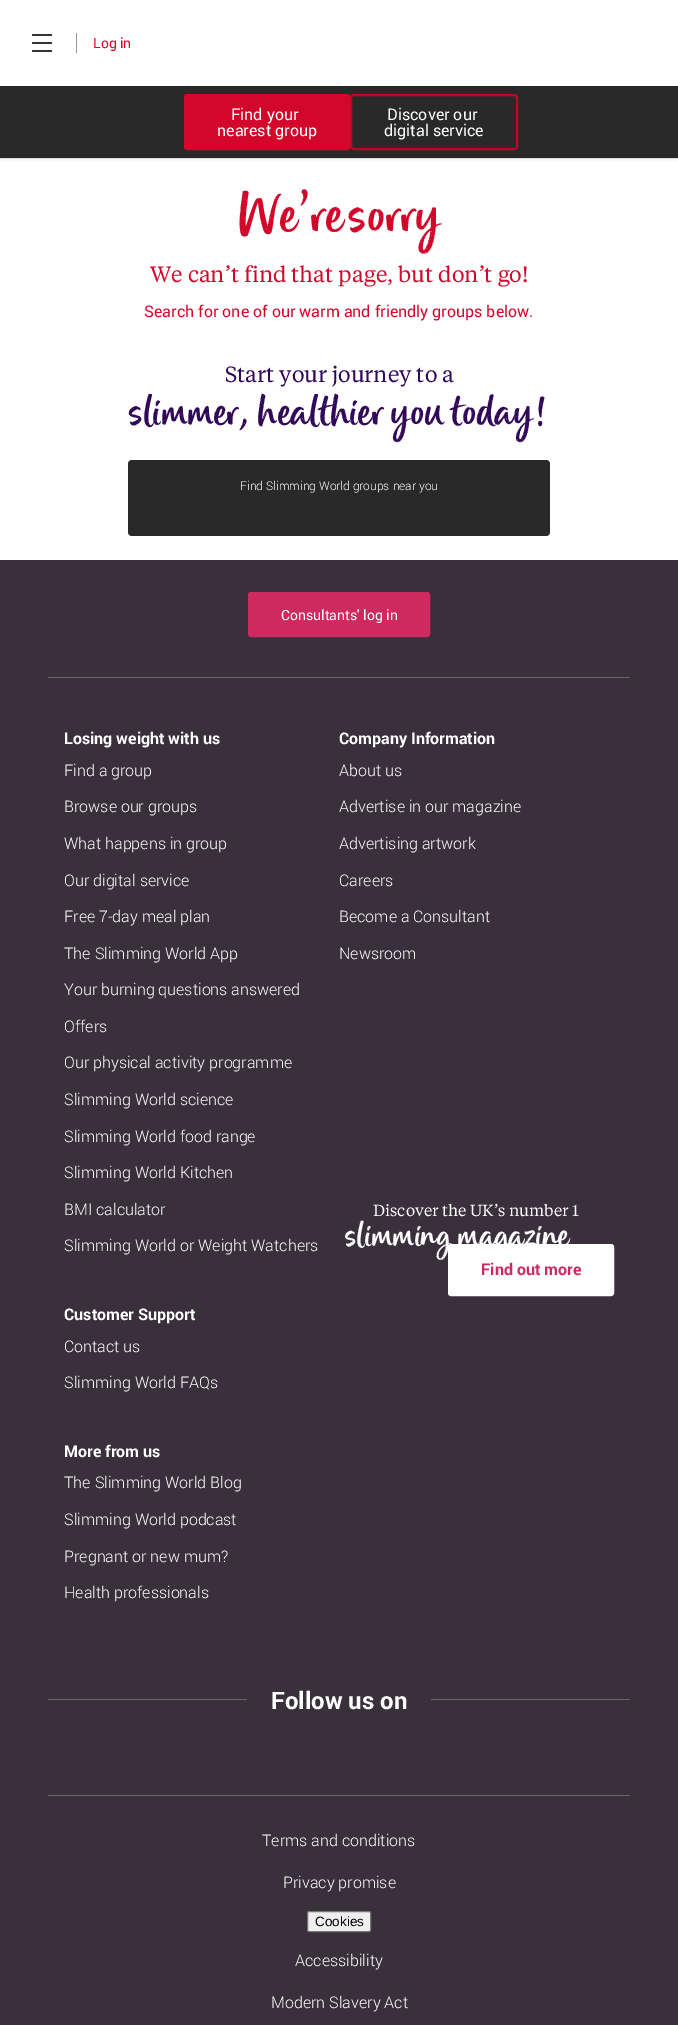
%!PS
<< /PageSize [678 2025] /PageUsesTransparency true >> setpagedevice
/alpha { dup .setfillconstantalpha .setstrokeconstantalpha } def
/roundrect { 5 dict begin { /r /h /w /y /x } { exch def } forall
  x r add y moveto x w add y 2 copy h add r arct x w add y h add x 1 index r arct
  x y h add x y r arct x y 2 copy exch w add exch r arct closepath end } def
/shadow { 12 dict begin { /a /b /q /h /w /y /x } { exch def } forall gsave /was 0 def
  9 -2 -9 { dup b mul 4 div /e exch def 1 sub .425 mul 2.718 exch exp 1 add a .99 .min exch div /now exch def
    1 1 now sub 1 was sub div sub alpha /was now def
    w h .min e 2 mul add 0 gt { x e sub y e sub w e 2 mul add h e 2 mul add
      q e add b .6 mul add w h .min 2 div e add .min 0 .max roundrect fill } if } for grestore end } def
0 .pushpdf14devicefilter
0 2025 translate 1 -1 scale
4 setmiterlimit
1 setgray
0 0 678 2025 rectfill
gsave
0 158 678 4 rectclip
0.231 0.251 0.271 setrgbcolor
0 1 678 158 0 3 0.1 shadow
grestore
0.1 alpha
0.047 0.051 0.055 setrgbcolor
0 158 678 1 rectfill
1 alpha
0.2 setgray
32 42 20 2 1 roundrect fill
32 34 20 2 1 roundrect fill
32 50 20 2 1 roundrect fill
0.6 setgray
76 33 1 20 rectfill
/Roboto-Regular [14 0 0 -14 0 0] selectfont
0.827 0.027 0.165 setrgbcolor
93 48 moveto (Log in) show
0.161 setgray
0 86 678 72 rectfill
0.827 0.027 0.165 setrgbcolor
184.5 94.5 165 55 2.5 roundrect gsave fill grestore
stroke
/Roboto-Regular [16 0 0 -16 0 0] selectfont
1 setgray
231 120 moveto (Find your) show
217 136 moveto (nearest group) show
0.745 0.024 0.149 setrgbcolor
2 setlinewidth
351 95 166 54 3 roundrect stroke
1 setgray
387 120 moveto (Discover our) show
384 136 moveto (digital service) show
/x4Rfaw-Regular [72 0 0 -72 0 0] selectfont
0.827 0.027 0.165 setrgbcolor
236 233 moveto -4 0 32 (We’re sorry) widthshow
/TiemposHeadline-Regular [22 0 0 -22 0 0] selectfont
150 282 moveto (We can’t find that page, but don’t go!) show
/Roboto-Regular [16 0 0 -16 0 0] selectfont
144 317 moveto (Search for one of our warm and friendly groups below.) show
/TiemposHeadline-Regular [22 0 0 -22 0 0] selectfont
0.192 0.027 0.341 setrgbcolor
225 382 moveto (Start your journey to a) show
/x4Rfaw-Regular [56 0 0 -56 0 0] selectfont
130 426 moveto -1.5 0 32 (slimmer, healthier you today!) widthshow
0.161 setgray
128 460 422 76 4 roundrect fill
/Roboto-Light [12 0 0 -12 0 0] selectfont
1 setgray
240 490 moveto (Find Slimming World groups near you) show
0.224 0.188 0.235 setrgbcolor
0 560 678 1465 rectfill
0.4 setgray
48 677 582 1 rectfill
0.808 0.165 0.376 setrgbcolor
248.5 592.5 181 44 2.5 roundrect gsave fill grestore
1 setlinewidth
stroke
/Roboto-Regular [14 0 0 -14 0 0] selectfont
1 setgray
281 620 moveto (Consultants' log in) show
/Roboto-Bold [16 0 0 -16 0 0] selectfont
64 744 moveto (Losing weight with us) show
/Roboto-Light [16 0 0 -16 0 0] selectfont
64 776 moveto (Find a group) show
64 812 moveto (Browse our groups) show
64 849 moveto (What happens in group) show
64 886 moveto (Our digital service) show
64 922 moveto (Free 7-day meal plan) show
64 959 moveto (The Slimming World App) show
64 995 moveto (Your burning questions answered) show
64 1032 moveto (Offers) show
64 1068 moveto (Our physical activity programme) show
64 1105 moveto (Slimming World science) show
64 1142 moveto (Slimming World food range) show
64 1178 moveto (Slimming World Kitchen) show
64 1215 moveto (BMI calculator) show
64 1251 moveto (Slimming World or Weight Watchers) show
/Roboto-Bold [16 0 0 -16 0 0] selectfont
339 744 moveto (Company Information) show
/Roboto-Light [16 0 0 -16 0 0] selectfont
339 776 moveto (About us) show
339 812 moveto (Advertise in our magazine) show
339 849 moveto (Advertising artwork) show
339 886 moveto (Careers) show
339 922 moveto (Become a Consultant) show
339 959 moveto (Newsroom) show
/TiemposHeadline-Regular [16 0 0 -16 0 0] selectfont
373 1216 moveto (Discover the UK’s number 1) show
/x4Rfaw-Regular [46 0 0 -46 0 0] selectfont
346 1247 moveto (slimming magazine) show
448.5 1244.5 165 51 2.5 roundrect gsave fill grestore
stroke
/Roboto-Bold [16 0 0 -16 0 0] selectfont
0.808 0.165 0.376 setrgbcolor
481 1275 moveto (Find out more) show
1 setgray
64 1320 moveto (Customer Support) show
/Roboto-Light [16 0 0 -16 0 0] selectfont
64 1352 moveto (Contact us) show
64 1388 moveto (Slimming World FAQs) show
/Roboto-Bold [16 0 0 -16 0 0] selectfont
64 1457 moveto (More from us) show
/Roboto-Light [16 0 0 -16 0 0] selectfont
64 1488 moveto (The Slimming World Blog) show
64 1525 moveto (Slimming World podcast) show
64 1562 moveto (Pregnant or new mum?) show
64 1598 moveto (Health professionals) show
0.4 setgray
48 1795 582 1 rectfill
48 1699 199 1 rectfill
/Roboto-Bold [24 0 0 -24 0 0] selectfont
1 setgray
271 1709 moveto (Follow us on) show
0.4 setgray
431 1699 199 1 rectfill
/Roboto-Light [16 0 0 -16 0 0] selectfont
1 setgray
262 1846 moveto (Terms and conditions) show
283 1888 moveto (Privacy promise) show
0.937 setgray
307.5 1911.5 63 20 1.5 roundrect gsave fill grestore
0.463 setgray
stroke
/LiberationSans-Regular [13.5 0 0 -13.5 0 0] selectfont
0 setgray
315 1926 moveto (Cookies) show
/Roboto-Light [16 0 0 -16 0 0] selectfont
1 setgray
295 1966 moveto (Accessibility) show
271 2008 moveto (Modern Slavery Act) show
.poppdf14devicefilter showpage
